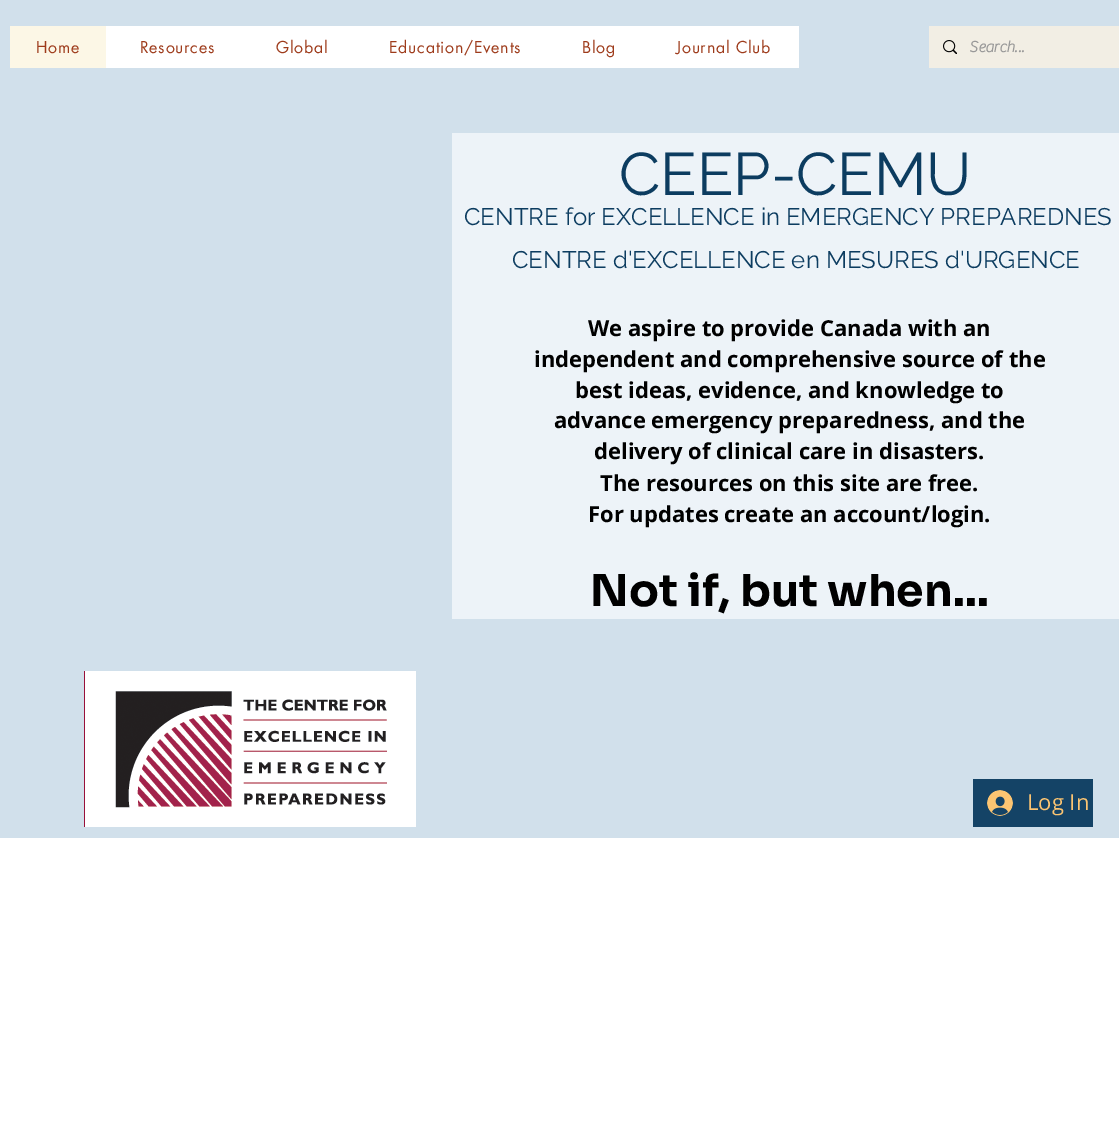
%!PS
<< /PageSize [1119 1134] >> setpagedevice
/picture { 5 dict begin { /h /w /y /x /name } { exch def } forall
  gsave x y translate w h scale
  w h 8 [w 0 0 h 0 0] name (r) file false 3 colorimage grestore end } def
0 1134 translate 1 -1 scale
4 setmiterlimit
1 setgray
0 0 1119 1134 rectfill
0.82 0.878 0.922 setrgbcolor
0 0 1119 838 rectfill
1 setgray
106 26 693 42 rectfill
0.988 0.969 0.902 setrgbcolor
10 26 96 42 rectfill
/futura-Regular [16 0 0 -16 0 0] selectfont
0.62 0.231 0.106 setrgbcolor
36 53 moveto 0.75 0 (Home) ashow
140 53 moveto 0.75 0 (Resources) ashow
276 53 moveto 0.75 0 (Global) ashow
389 53 moveto 0.75 0 (Education/Events) ashow
582 53 moveto 0.75 0 (Blog) ashow
676 53 moveto 0.75 0 (Journal Club) ashow
0.949 0.933 0.894 setrgbcolor
929 26 190 42 rectfill
(img1.rgb) 943 40 14 14 picture
/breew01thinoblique-Bold [16 0 0 -16 0 0] selectfont
0.6 setgray
969 52 moveto (Search...) show
0.929 0.953 0.973 setrgbcolor
452 133 667 486 rectfill
/Raleway-Regular [60 0 0 -60 0 0] selectfont
0.047 0.235 0.376 setrgbcolor
619 195 moveto (CEEP-CEMU) show
/Raleway-Regular [24 0 0 -24 0 0] selectfont
464 225 moveto (CENTRE for EXCELLENCE in EMERGENCY PREPAREDNES) show
512 268 moveto (CENTRE d'EXCELLENCE en MESURES d'URGENCE) show
/OpenSans-Bold [22 0 0 -22 0 0] selectfont
0 setgray
588 336 moveto (We aspire to provide Canada with an) show
534 367 moveto (independent and comprehensive source of the) show
575 398 moveto (best ideas, evidence, and knowledge to) show
554 428 moveto (advance emergency preparedness, and the) show
594 459 moveto (delivery of clinical care in disasters.) show
600 491 moveto (The resources on this site are free.) show
588 522 moveto (For updates create an account/login.) show
/Sora-Bold [44 0 0 -44 0 0] selectfont
590 606 moveto (Not if, but when...) show
(img2.rgb) 84 671 332 156 picture
0.078 0.263 0.4 setrgbcolor
973 779 120 48 rectfill
(img3.rgb) 987 790 26 26 picture
/OpenSans-Regular [22 0 0 -22 0 0] selectfont
0.988 0.773 0.447 setrgbcolor
1027 810 moveto (Log In) show
showpage
